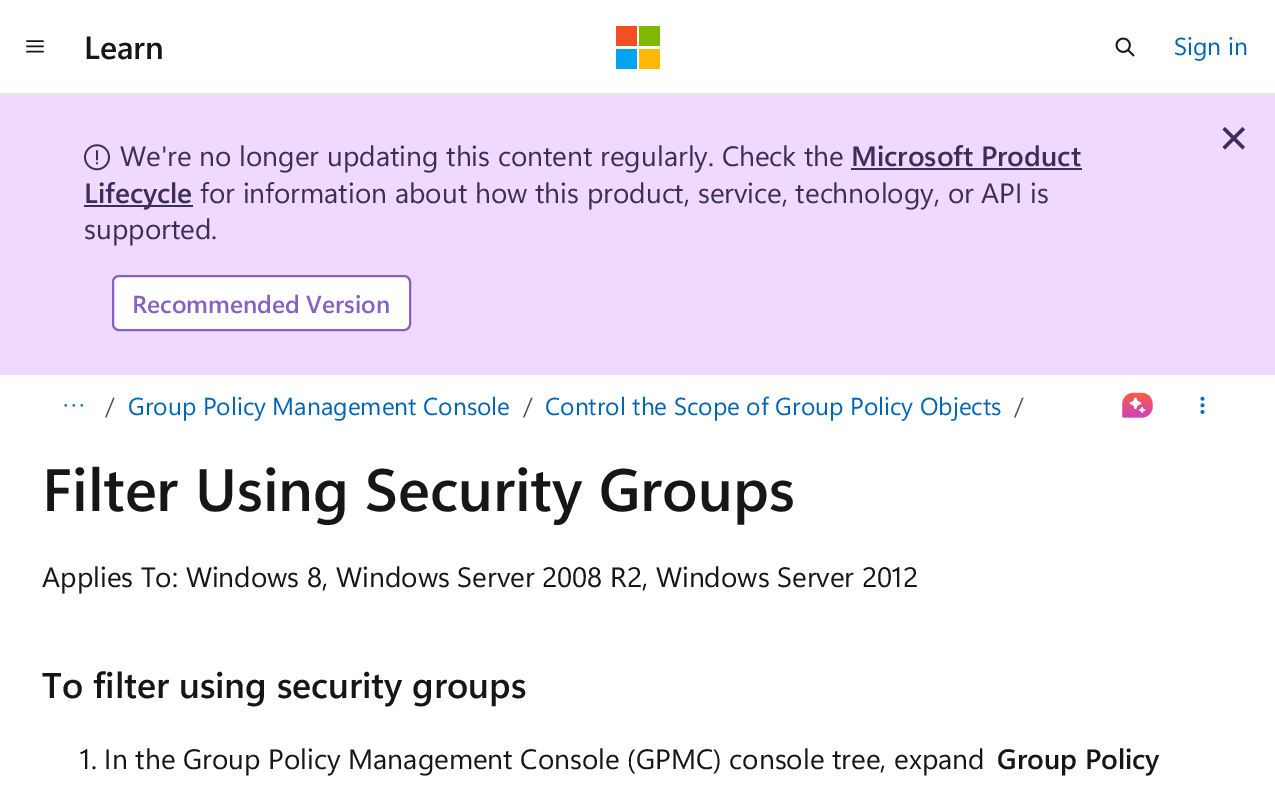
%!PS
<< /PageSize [1275 789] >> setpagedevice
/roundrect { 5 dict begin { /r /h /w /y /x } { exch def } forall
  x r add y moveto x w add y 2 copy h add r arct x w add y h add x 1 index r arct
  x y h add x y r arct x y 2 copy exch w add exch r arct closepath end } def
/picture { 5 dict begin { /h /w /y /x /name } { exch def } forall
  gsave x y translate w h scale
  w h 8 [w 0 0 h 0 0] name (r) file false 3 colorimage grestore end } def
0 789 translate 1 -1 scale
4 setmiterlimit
1 setgray
0 0 1275 789 rectfill
0.902 setgray
0 93 1275 2 rectfill
(img1.rgb) 26 40 18 13 picture
/SegoeUI-SemiBold [32 0 0 -32 0 0] selectfont
0.086 setgray
84 59 moveto (Learn) show
0.949 0.314 0.133 setrgbcolor
616 26 21 20 rectfill
0.498 0.729 0 setrgbcolor
639 26 21 20 rectfill
0 0.643 0.937 setrgbcolor
616 49 21 20 rectfill
1 0.725 0 setrgbcolor
639 49 21 20 rectfill
(img2.rgb) 1115 37 20 20 picture
/SegoeUI-Regular [24.5 0 0 -24.5 0 0] selectfont
0 0.396 0.702 setrgbcolor
1174 55 moveto (Sign in) show
0.937 0.851 0.992 setrgbcolor
0 95 1275 280 rectfill
0.231 0.18 0.345 setrgbcolor
newpath 1225 127 moveto 1245 147 lineto 1242.5 149.5 lineto 1222.5 129.5 lineto closepath fill
newpath 1242.5 127 moveto 1245 129.5 lineto 1225 149.5 lineto 1222.5 147 lineto closepath fill
(img3.rgb) 84 144 26 27 picture
/SegoeUI-Regular [28 0 0 -28 0 0] selectfont
120 166 moveto (We're no longer updating this content regularly. Check the) show
/SegoeUI-SemiBold [28 0 0 -28 0 0] selectfont
851 166 moveto (Microsoft Product) show
851 168 231 2 rectfill
84 205 109 2 rectfill
84 203 moveto (Lifecycle) show
/SegoeUI-Regular [28 0 0 -28 0 0] selectfont
200 203 moveto (for information about how this product, service, technology, or API is) show
84 239 moveto (supported.) show
1 setgray
113 276 297 54 6 roundrect gsave fill grestore
0.525 0.38 0.773 setrgbcolor
2 setlinewidth
stroke
/SegoeUI-SemiBold [24.5 0 0 -24.5 0 0] selectfont
132 313 moveto (Recommended Version) show
(img4.rgb) 64 404 20 3 picture
/SegoeUI-Regular [24.5 0 0 -24.5 0 0] selectfont
0.314 setgray
105 415 moveto (/) show
0 0.396 0.702 setrgbcolor
128 415 moveto (Group Policy Management Console) show
0.314 setgray
523 415 moveto (/) show
0 0.396 0.702 setrgbcolor
545 415 moveto (Control the Scope of Group Policy Objects) show
0.314 setgray
1014 415 moveto (/) show
(img5.rgb) 1122 392 31 26 picture
(img6.rgb) 1200 396 5 18 picture
/SegoeUI-SemiBold [59.7 0 0 -59.7 0 0] selectfont
0.086 setgray
42 511 moveto (Filter Using Security Groups) show
/SegoeUI-Regular [28 0 0 -28 0 0] selectfont
42 587 moveto (Applies To: Windows 8, Windows Server 2008 R2, Windows Server 2012) show
/SegoeUI-SemiBold [35.75 0 0 -35.75 0 0] selectfont
42 698 moveto (To filter using security groups) show
/SegoeUI-Regular [28 0 0 -28 0 0] selectfont
80 769 moveto (1. In the Group Policy Management Console \(GPMC\) console tree, expand) show
/SegoeUI-SemiBold [28 0 0 -28 0 0] selectfont
997 769 moveto (Group Policy) show
showpage
